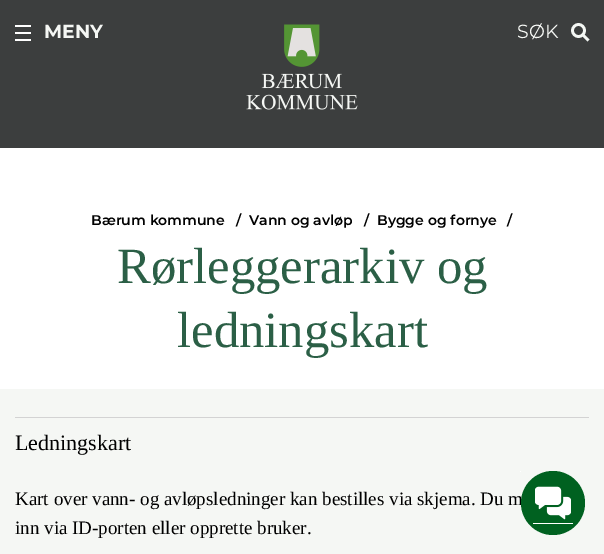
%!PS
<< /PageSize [604 554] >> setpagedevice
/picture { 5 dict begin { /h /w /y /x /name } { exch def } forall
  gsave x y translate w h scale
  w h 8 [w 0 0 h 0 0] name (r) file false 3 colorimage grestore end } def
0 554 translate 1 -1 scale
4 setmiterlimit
0.961 0.969 0.957 setrgbcolor
0 0 604 554 rectfill
0.235 0.243 0.243 setrgbcolor
0 0 604 148 rectfill
1 setgray
15 25 16 2 rectfill
15 32 16 2 rectfill
15 39 16 2 rectfill
/Montserrat-Bold [19 0 0 -19 0 0] selectfont
0.961 0.969 0.957 setrgbcolor
44 38 moveto (MENY) show
(img1.rgb) 246 24 112 86 picture
0.957 0.969 0.957 setrgbcolor
2.7 setlinewidth
newpath 578.5 30.5 6 0 360 arc closepath stroke
newpath 583 35 moveto 588.5 40.5 lineto stroke
/Montserrat-Regular [19 0 0 -19 0 0] selectfont
0.961 0.969 0.957 setrgbcolor
517 38 moveto (SØK) show
1 setgray
0 148 604 241 rectfill
/Montserrat-SemiBold [14 0 0 -14 0 0] selectfont
0 setgray
91 225 moveto (Bærum kommune) show
236 225 moveto (/) show
249 225 moveto (Vann og avløp) show
364 225 moveto (/) show
377 225 moveto (Bygge og fornye) show
507 225 moveto (/) show
/LiberationSerif-Regular [50.75 0 0 -50.75 0 0] selectfont
0.169 0.373 0.275 setrgbcolor
117 283 moveto (Rørleggerarkiv og) show
177 347 moveto (ledningskart) show
0.827 setgray
15 417 574 1 rectfill
/LiberationSerif-Regular [22 0 0 -22 0 0] selectfont
0 setgray
15 450 moveto (Ledningskart) show
/LiberationSerif-Regular [19 0 0 -19 0 0] selectfont
15 505 moveto (Kart over vann- og avløpsledninger kan bestilles via skjema. Du m) show
15 534 moveto (inn via ID-porten eller opprette bruker.) show
0 0.38 0.125 setrgbcolor
newpath 553 503 32 0 360 arc closepath fill
1 setgray
533 523 40 1 rectfill
520 471 1 1 rectfill
(img2.rgb) 535 486 36 34 picture
showpage
